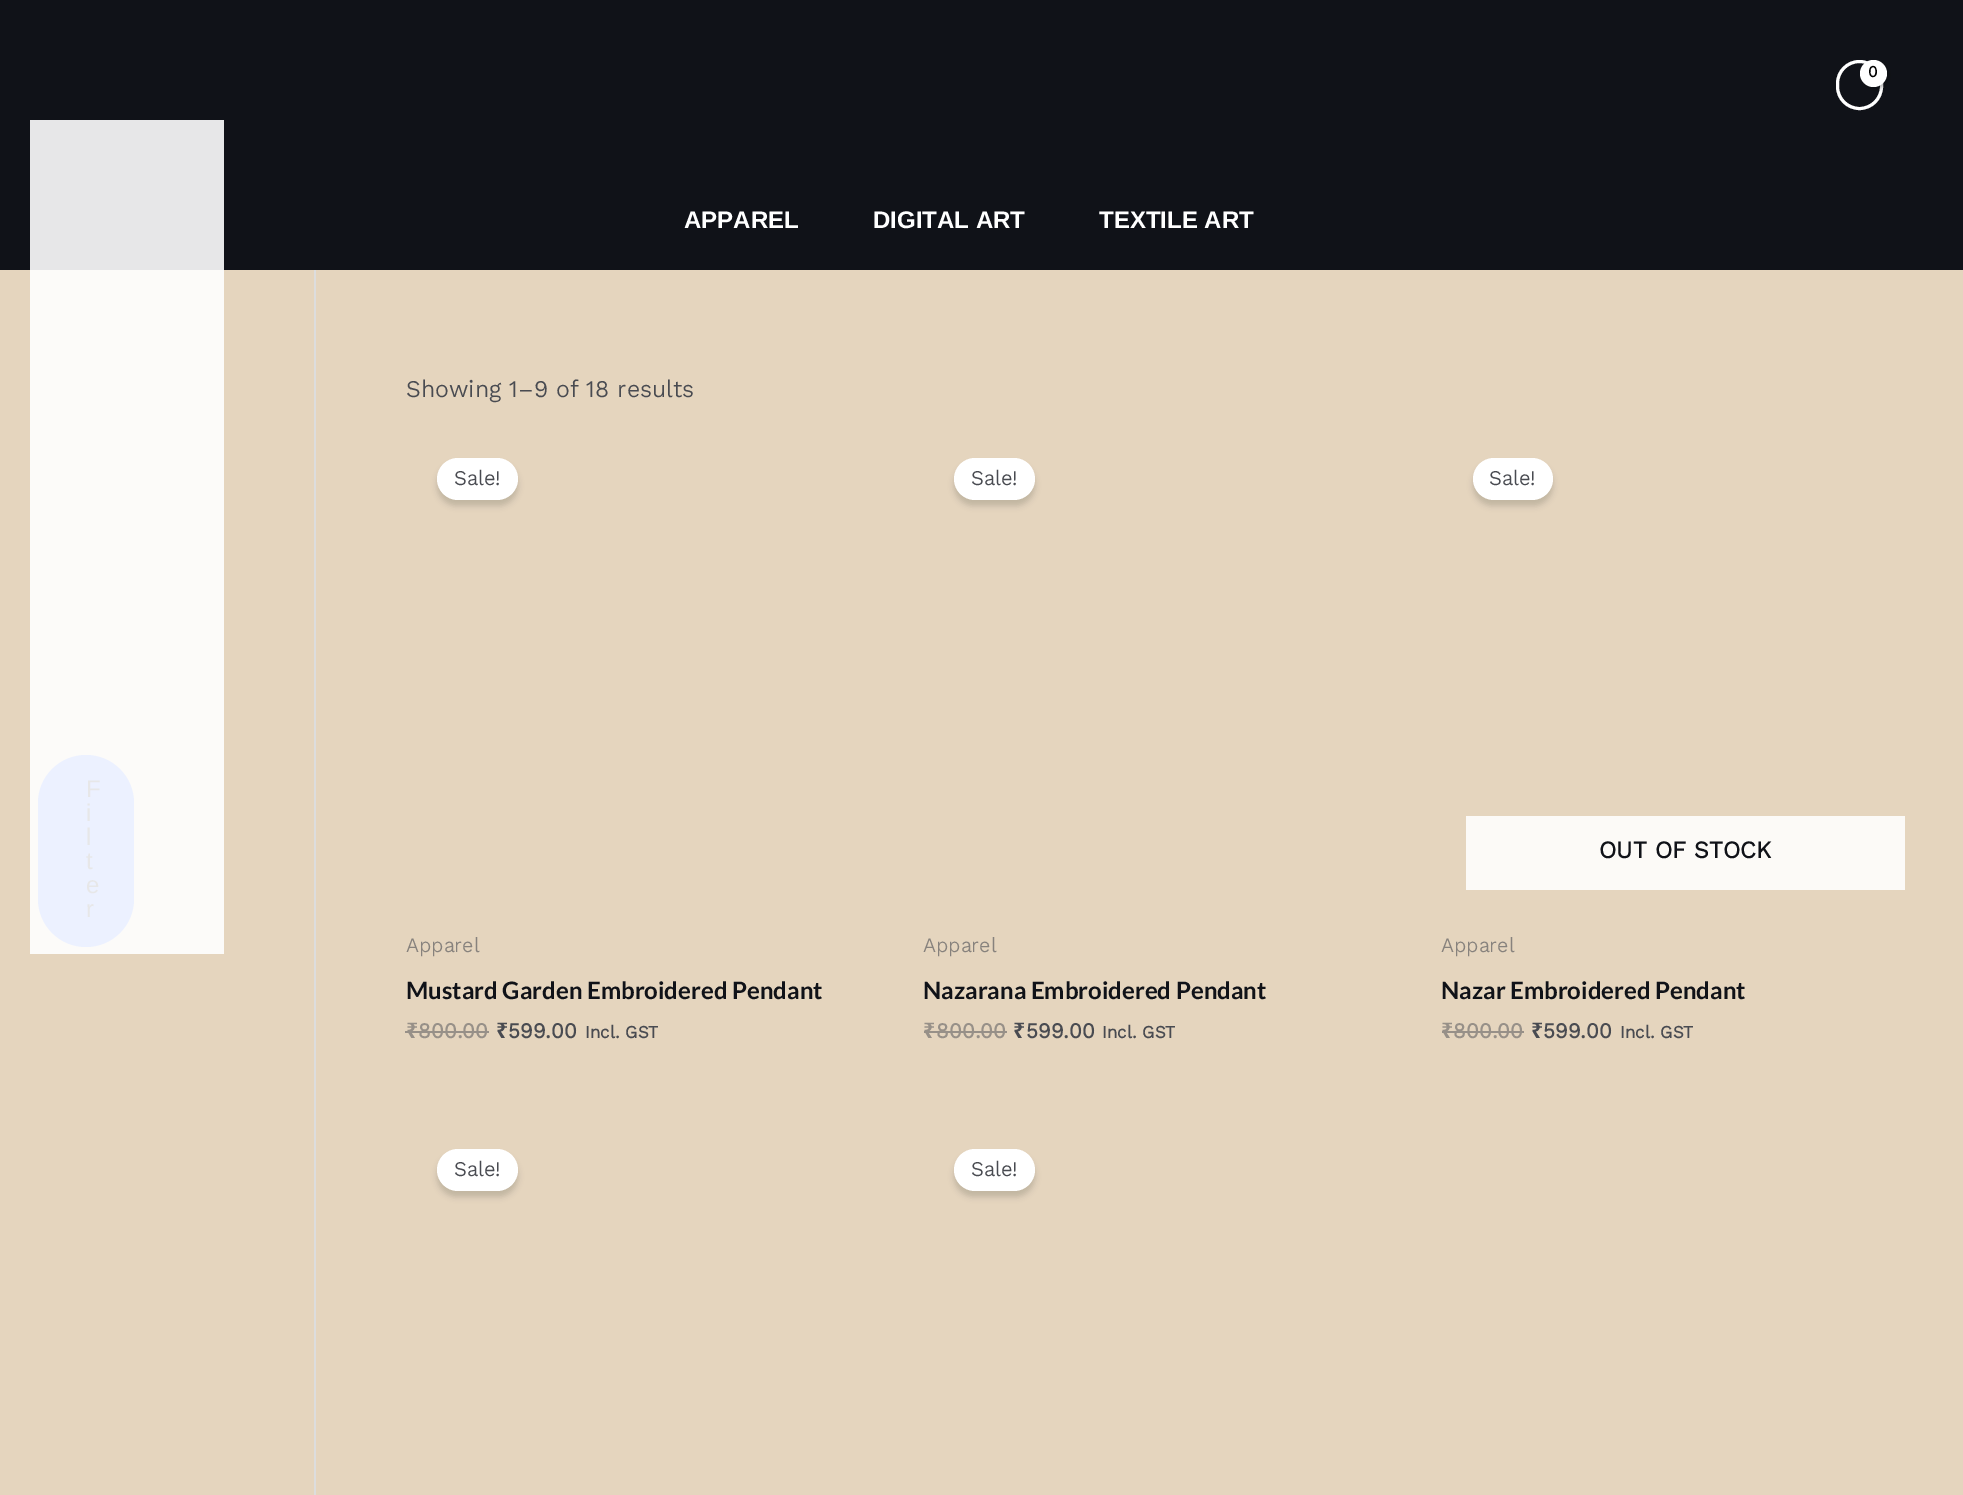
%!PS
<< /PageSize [1963 1495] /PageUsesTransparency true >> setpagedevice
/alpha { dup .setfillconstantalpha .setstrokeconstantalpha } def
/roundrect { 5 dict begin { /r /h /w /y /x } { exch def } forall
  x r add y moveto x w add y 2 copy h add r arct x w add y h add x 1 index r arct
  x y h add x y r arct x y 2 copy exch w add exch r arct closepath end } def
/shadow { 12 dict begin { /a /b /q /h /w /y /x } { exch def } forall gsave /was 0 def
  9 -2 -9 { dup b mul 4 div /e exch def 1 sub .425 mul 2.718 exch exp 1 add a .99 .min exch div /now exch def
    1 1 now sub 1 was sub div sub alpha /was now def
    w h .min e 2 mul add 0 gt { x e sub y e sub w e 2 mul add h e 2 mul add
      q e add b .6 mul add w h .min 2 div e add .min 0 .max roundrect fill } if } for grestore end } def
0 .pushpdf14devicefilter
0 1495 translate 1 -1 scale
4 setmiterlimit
0.898 0.835 0.745 setrgbcolor
0 0 1963 1495 rectfill
0.988 0.984 0.976 setrgbcolor
30 270 194 684 rectfill
0.063 0.071 0.094 setrgbcolor
0 0 1963 270 rectfill
0.906 0.906 0.91 setrgbcolor
30 120 194 150 rectfill
1 setgray
3 setlinewidth
1837.5 61.5 44 47 22 roundrect stroke
0 setgray
1862 62 27 27 13.5 2 0.3 shadow
1 setgray
newpath 1873.5 73.5 13.5 0 360 arc closepath fill
/KantumruyPro-Bold [16 0 0 -16 0 0] selectfont
0 setgray
1868 77 moveto -1 0 (0) ashow
/LiberationSans-Bold [24 0 0 -24 0 0] selectfont
1 setgray
684 228 moveto (APPAREL) show
873 228 moveto (DIGITAL ART) show
1099 228 moveto (TEXTILE ART) show
0.925 0.945 1 setrgbcolor
38 755 96 192 48 roundrect fill
/LiberationSans-Regular [24 0 0 -24 0 0] selectfont
0.906 0.906 0.91 setrgbcolor
86 797 moveto 3 0 (F) ashow
86 821 moveto 3 0 (i) ashow
86 845 moveto 3 0 (l) ashow
86 869 moveto 3 0 (t) ashow
86 893 moveto 3 0 (e) ashow
86 917 moveto 3 0 (r) ashow
0.867 setgray
314 270 2 1225 rectfill
/KantumruyPro-Regular [24 0 0 -24 0 0] selectfont
0.286 0.294 0.318 setrgbcolor
406 397 moveto (Showing 1–9 of 18 results) show
0 setgray
437 464 81 42 21 3 0.15 shadow
1 setgray
437 458 81 42 21 roundrect fill
/KantumruyPro-Regular [21 0 0 -21 0 0] selectfont
0.286 0.294 0.318 setrgbcolor
454 485 moveto (Sale!) show
/KantumruyPro-Regular [20.5 0 0 -20.5 0 0] selectfont
0.529 0.51 0.49 setrgbcolor
406 952 moveto (Apparel) show
/Lato-Bold [24 0 0 -24 0 0] selectfont
0.063 0.071 0.094 setrgbcolor
406 999 moveto (Mustard Garden Embroidered Pendant) show
/NotoSans-Bold [21.5 0 0 -21.5 0 0] selectfont
0.592 0.565 0.533 setrgbcolor
406 1038 moveto (₹) show
/KantumruyPro-Bold [21.5 0 0 -21.5 0 0] selectfont
418 1038 moveto (800.00) show
405 1031 14 2 rectfill
419 1031 70 2 rectfill
/NotoSans-Bold [21.5 0 0 -21.5 0 0] selectfont
0.286 0.294 0.318 setrgbcolor
496 1038 moveto (₹) show
/KantumruyPro-Bold [21.5 0 0 -21.5 0 0] selectfont
508 1038 moveto (599.00) show
/KantumruyPro-Bold [17.5 0 0 -17.5 0 0] selectfont
585 1038 moveto (Incl. GST) show
0 setgray
954 464 81 42 21 3 0.15 shadow
1 setgray
954 458 81 42 21 roundrect fill
/KantumruyPro-Regular [21 0 0 -21 0 0] selectfont
0.286 0.294 0.318 setrgbcolor
971 485 moveto (Sale!) show
/KantumruyPro-Regular [20.5 0 0 -20.5 0 0] selectfont
0.529 0.51 0.49 setrgbcolor
923 952 moveto (Apparel) show
/Lato-Bold [24 0 0 -24 0 0] selectfont
0.063 0.071 0.094 setrgbcolor
923 999 moveto (Nazarana Embroidered Pendant) show
/NotoSans-Bold [21.5 0 0 -21.5 0 0] selectfont
0.592 0.565 0.533 setrgbcolor
923 1038 moveto (₹) show
/KantumruyPro-Bold [21.5 0 0 -21.5 0 0] selectfont
936 1038 moveto (800.00) show
924 1031 12 2 rectfill
936 1031 71 2 rectfill
/NotoSans-Bold [21.5 0 0 -21.5 0 0] selectfont
0.286 0.294 0.318 setrgbcolor
1013 1038 moveto (₹) show
/KantumruyPro-Bold [21.5 0 0 -21.5 0 0] selectfont
1026 1038 moveto (599.00) show
/KantumruyPro-Bold [17.5 0 0 -17.5 0 0] selectfont
1102 1038 moveto (Incl. GST) show
0 setgray
1473 464 80 42 21 3 0.15 shadow
1 setgray
1473 458 80 42 21 roundrect fill
/KantumruyPro-Regular [21 0 0 -21 0 0] selectfont
0.286 0.294 0.318 setrgbcolor
1489 485 moveto (Sale!) show
0.988 0.98 0.969 setrgbcolor
1466 816 439 74 rectfill
/KantumruyPro-Bold [24 0 0 -24 0 0] selectfont
0.063 0.071 0.094 setrgbcolor
1599 858 moveto (OUT OF STOCK) show
/KantumruyPro-Regular [20.5 0 0 -20.5 0 0] selectfont
0.529 0.51 0.49 setrgbcolor
1441 952 moveto (Apparel) show
/Lato-Bold [24 0 0 -24 0 0] selectfont
0.063 0.071 0.094 setrgbcolor
1441 999 moveto (Nazar Embroidered Pendant) show
/NotoSans-Bold [21.5 0 0 -21.5 0 0] selectfont
0.592 0.565 0.533 setrgbcolor
1441 1038 moveto (₹) show
/KantumruyPro-Bold [21.5 0 0 -21.5 0 0] selectfont
1453 1038 moveto (800.00) show
1442 1031 12 2 rectfill
1454 1031 70 2 rectfill
/NotoSans-Bold [21.5 0 0 -21.5 0 0] selectfont
0.286 0.294 0.318 setrgbcolor
1531 1038 moveto (₹) show
/KantumruyPro-Bold [21.5 0 0 -21.5 0 0] selectfont
1543 1038 moveto (599.00) show
/KantumruyPro-Bold [17.5 0 0 -17.5 0 0] selectfont
1620 1038 moveto (Incl. GST) show
0 setgray
437 1155 81 42 21 3 0.15 shadow
1 setgray
437 1149 81 42 21 roundrect fill
/KantumruyPro-Regular [21 0 0 -21 0 0] selectfont
0.286 0.294 0.318 setrgbcolor
454 1176 moveto (Sale!) show
0 setgray
954 1155 81 42 21 3 0.15 shadow
1 setgray
954 1149 81 42 21 roundrect fill
0.286 0.294 0.318 setrgbcolor
971 1176 moveto (Sale!) show
.poppdf14devicefilter showpage
